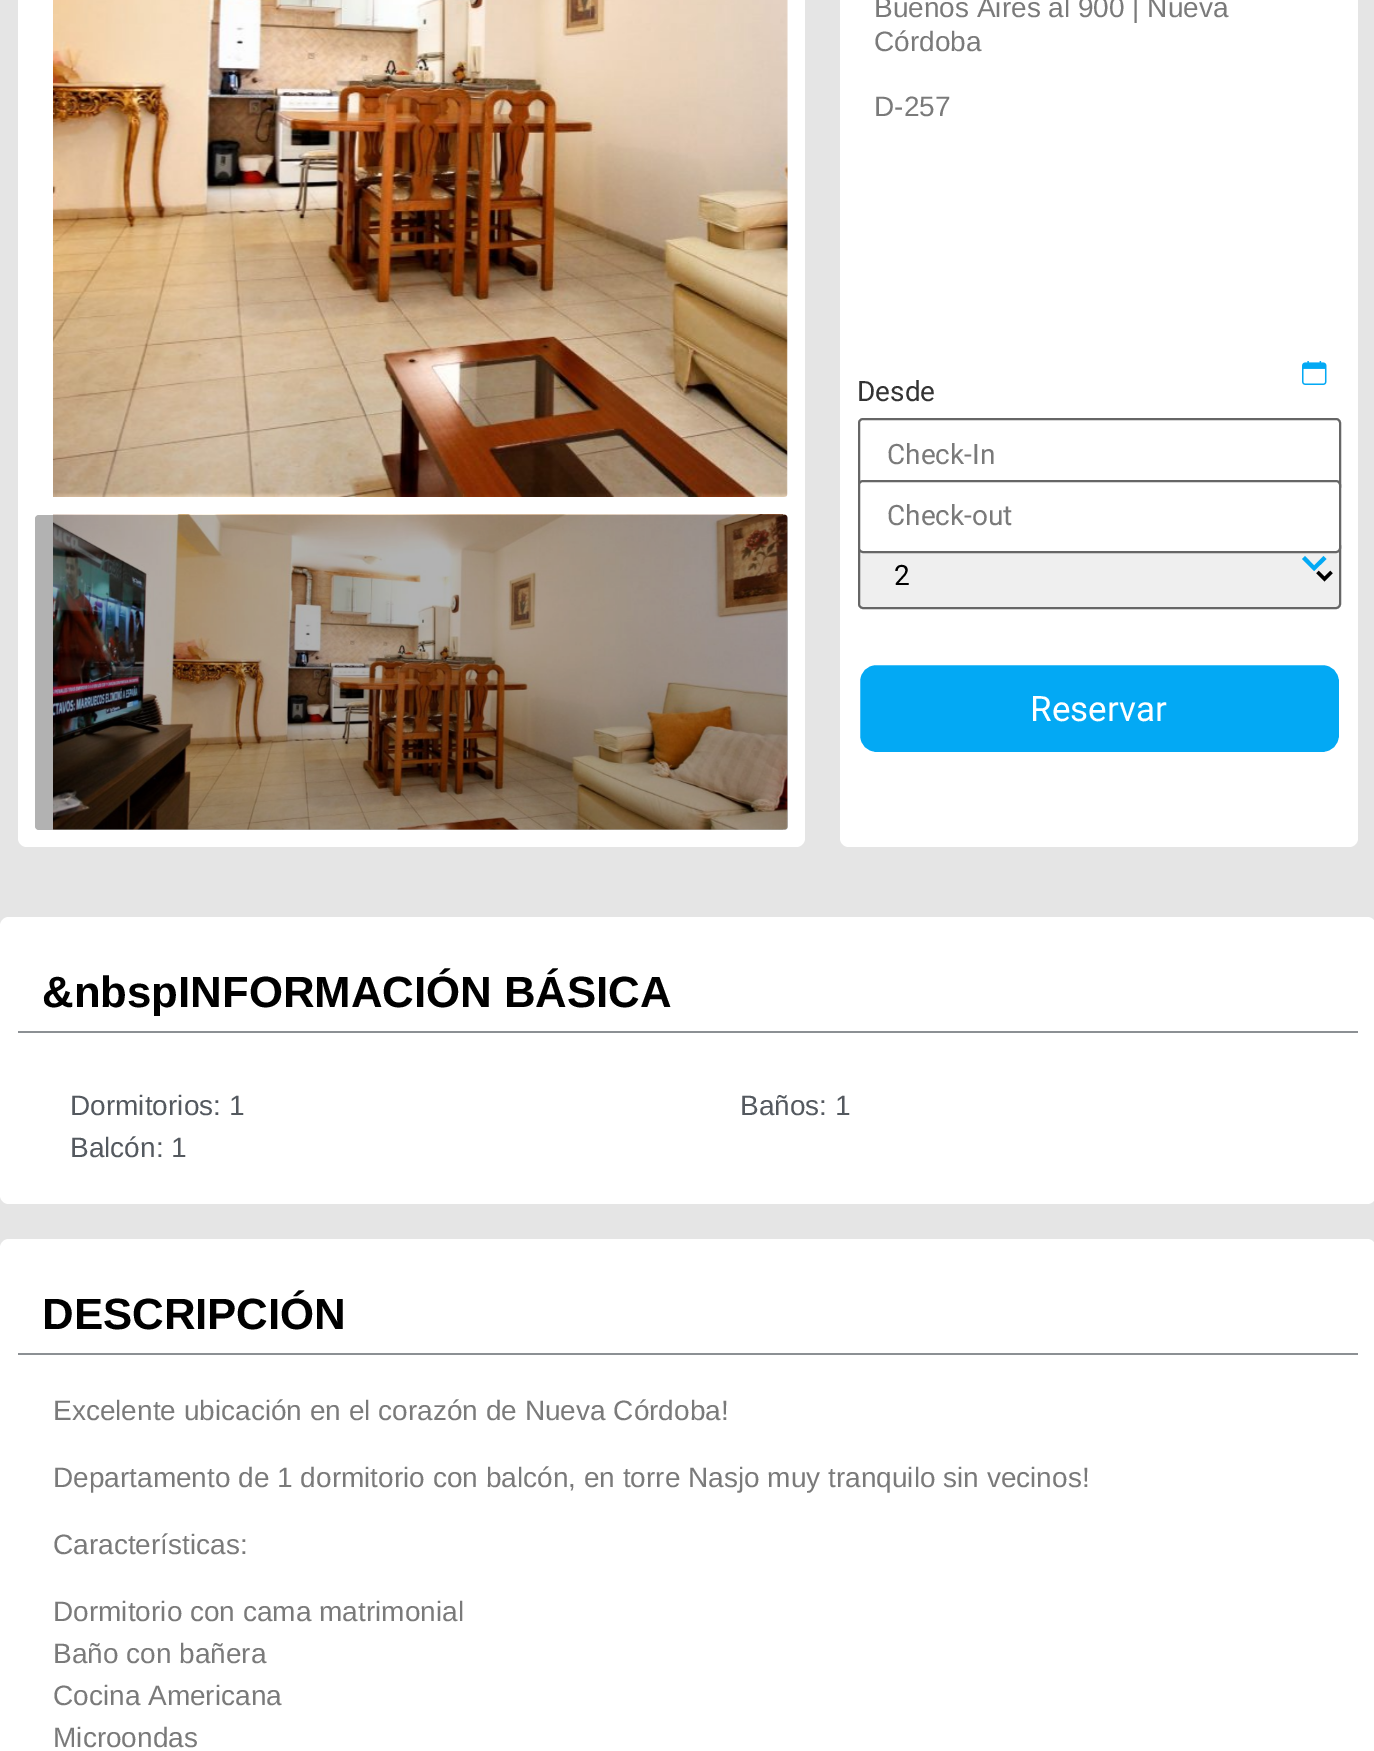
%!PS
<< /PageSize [1374 1751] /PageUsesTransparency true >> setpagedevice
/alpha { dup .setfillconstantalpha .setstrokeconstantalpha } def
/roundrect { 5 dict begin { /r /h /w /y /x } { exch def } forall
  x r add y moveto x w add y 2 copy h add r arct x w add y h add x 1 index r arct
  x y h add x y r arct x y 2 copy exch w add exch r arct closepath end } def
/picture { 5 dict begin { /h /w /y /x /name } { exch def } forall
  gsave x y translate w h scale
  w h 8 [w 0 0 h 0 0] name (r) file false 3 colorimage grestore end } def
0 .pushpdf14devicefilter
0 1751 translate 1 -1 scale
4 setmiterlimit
0.898 setgray
0 0 1374 1751 rectfill
1 setgray
18 -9 787 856 9 roundrect fill
(img1.rgb) 53 0 735 497 picture
(img2.rgb) 53 514 735 316 picture
0.3 alpha
0 setgray
35 515 753 315 4 roundrect fill
1 alpha
1 setgray
840 -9 518 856 9 roundrect fill
/LiberationSans-Regular [28 0 0 -28 0 0] selectfont
0.478 setgray
874 17 moveto (Buenos Aires al 900 | Nueva) show
874 51 moveto (Córdoba) show
874 116 moveto (D-257) show
(img3.rgb) 1302 361 25 24 picture
/Roboto-Regular [28 0 0 -28 0 0] selectfont
0.2 setgray
857 401 moveto (Desde) show
0.4 setgray
2 setlinewidth
859 419 481 72 4 roundrect stroke
0.478 setgray
887 464 moveto (Check-In) show
0.937 setgray
859 542 481 66 4 roundrect gsave fill grestore
0.4 setgray
stroke
1 setgray
859 481 481 71 4 roundrect gsave fill grestore
0.4 setgray
stroke
0.478 setgray
887 525 moveto (Check-out) show
0 setgray
3.5 setlinewidth
newpath 1317.5 572 moveto 1324.5 579 lineto 1331.5 572 lineto stroke
894 585 moveto (2) show
0.012 0.663 0.957 setrgbcolor
newpath 1323.5 556 moveto 1314 565.5 lineto 1305 556 lineto 1302 559 lineto 1314 571 lineto 1326.5 559 lineto closepath fill
859 664 481 89 17 roundrect gsave fill grestore
1 setgray
2 setlinewidth
stroke
/Roboto-Regular [35 0 0 -35 0 0] selectfont
1030 721 moveto (Reservar) show
0 917 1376 287 9 roundrect fill
0.549 0.565 0.58 setrgbcolor
18 1031 1340 2 rectfill
/LiberationSans-Bold [43.75 0 0 -43.75 0 0] selectfont
0 setgray
42 1007 moveto (&nbspINFORMACIÓN BÁSICA) show
/LiberationSans-Regular [28 0 0 -28 0 0] selectfont
0.329 0.349 0.373 setrgbcolor
70 1115 moveto (Dormitorios: 1) show
70 1157 moveto (Balcón: 1) show
740 1115 moveto (Baños: 1) show
1 setgray
0 1239 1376 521 9 roundrect fill
0.549 0.565 0.58 setrgbcolor
18 1353 1340 2 rectfill
/LiberationSans-Bold [43.75 0 0 -43.75 0 0] selectfont
0 setgray
42 1329 moveto (DESCRIPCIÓN) show
/LiberationSans-Regular [28 0 0 -28 0 0] selectfont
0.478 setgray
53 1420 moveto (Excelente ubicación en el corazón de Nueva Córdoba!) show
53 1487 moveto (Departamento de 1 dormitorio con balcón, en torre Nasjo muy tranquilo sin vecinos!) show
53 1554 moveto (Características:) show
53 1621 moveto (Dormitorio con cama matrimonial) show
53 1663 moveto (Baño con bañera) show
53 1705 moveto (Cocina Americana) show
53 1747 moveto (Microondas) show
.poppdf14devicefilter showpage
